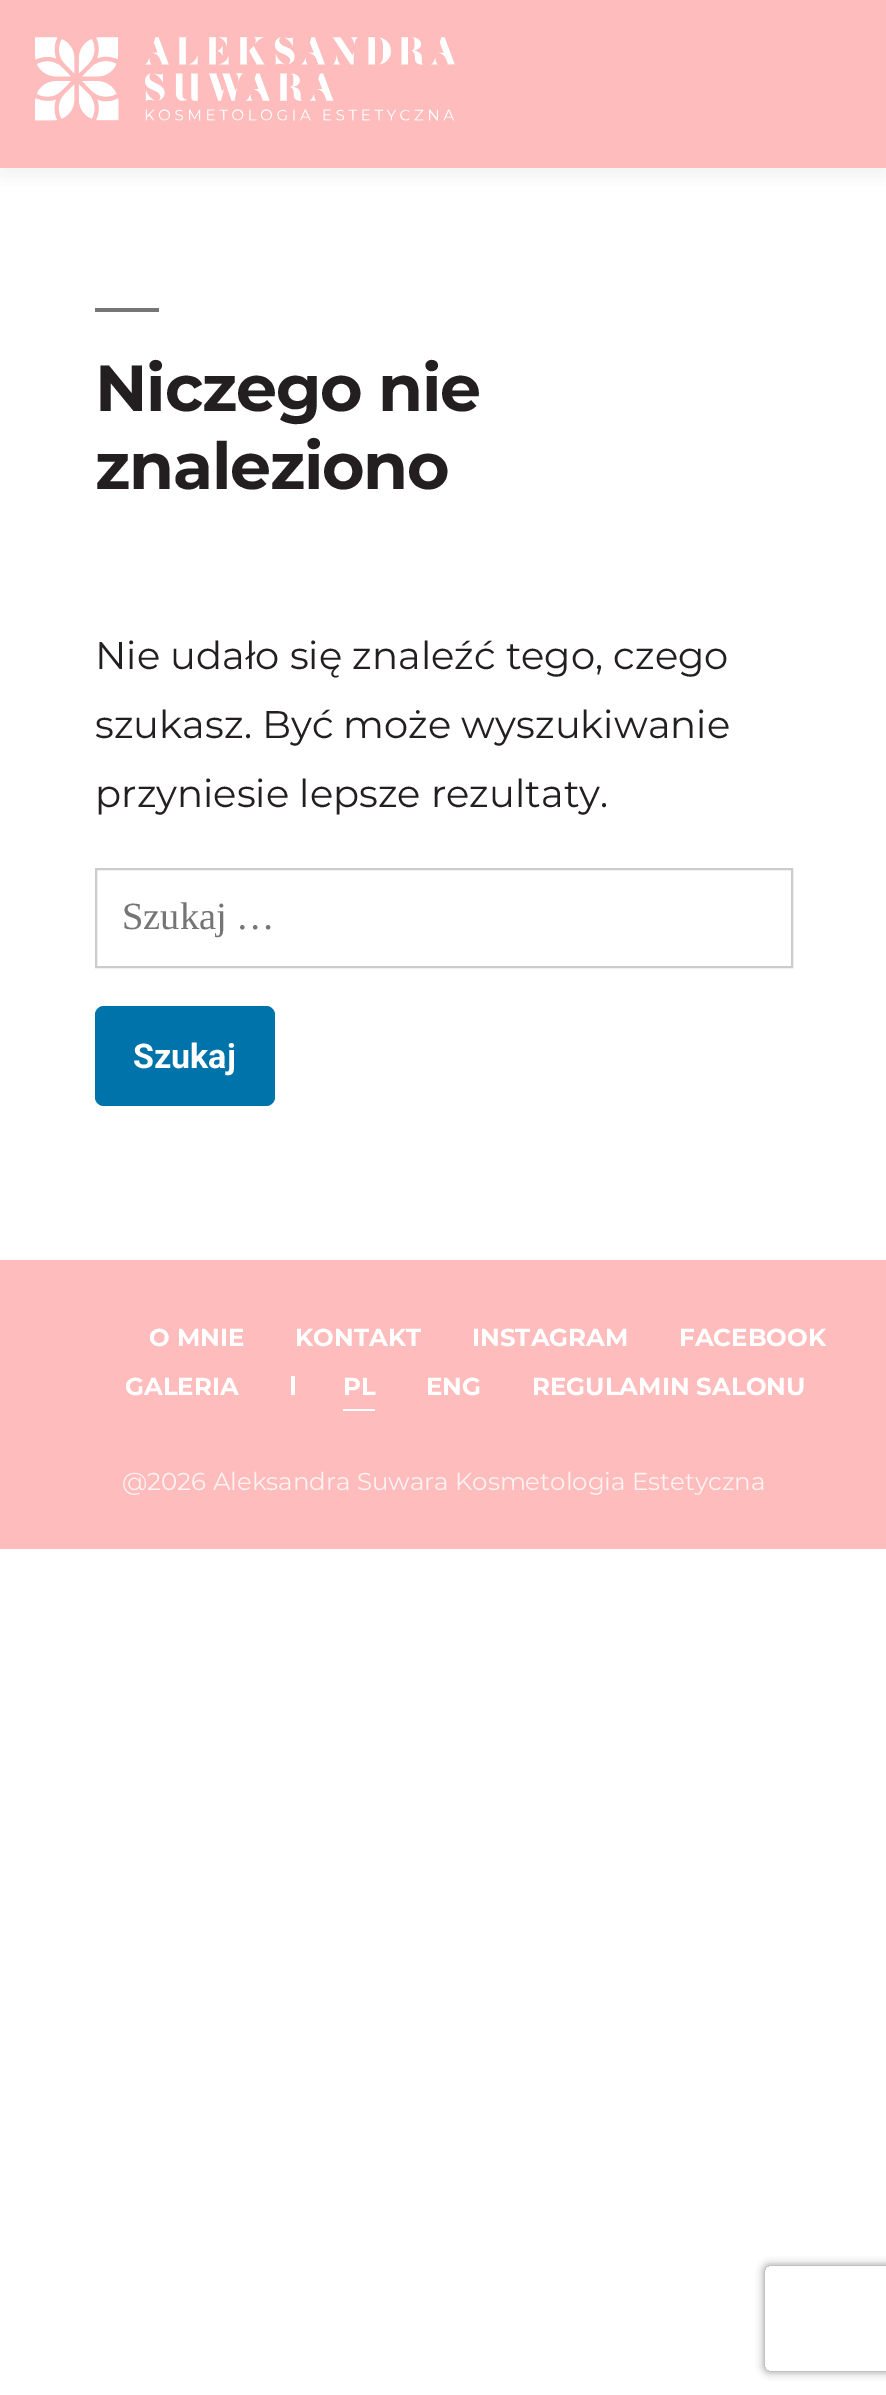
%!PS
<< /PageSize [886 2395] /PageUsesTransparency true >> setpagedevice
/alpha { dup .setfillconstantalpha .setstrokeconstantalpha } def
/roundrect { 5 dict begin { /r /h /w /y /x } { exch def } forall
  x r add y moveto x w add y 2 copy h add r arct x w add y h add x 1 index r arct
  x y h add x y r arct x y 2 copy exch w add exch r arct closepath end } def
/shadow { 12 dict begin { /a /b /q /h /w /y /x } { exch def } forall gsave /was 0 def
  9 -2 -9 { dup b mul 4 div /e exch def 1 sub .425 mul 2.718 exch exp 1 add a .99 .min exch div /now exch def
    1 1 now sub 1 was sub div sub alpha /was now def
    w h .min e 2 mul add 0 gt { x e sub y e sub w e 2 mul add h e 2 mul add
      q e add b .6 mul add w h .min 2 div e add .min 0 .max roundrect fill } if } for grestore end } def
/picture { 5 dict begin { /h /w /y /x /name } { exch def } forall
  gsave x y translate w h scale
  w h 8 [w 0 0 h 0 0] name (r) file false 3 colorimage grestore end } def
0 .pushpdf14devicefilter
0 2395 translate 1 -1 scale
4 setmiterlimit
1 setgray
0 0 886 2395 rectfill
0.996 0.741 0.737 setrgbcolor
0 0 886 168 rectfill
gsave
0 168 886 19 rectclip
0.604 setgray
0 7 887 168 0 10.5 0.16 shadow
grestore
(img1.rgb) 35 37 420 84 picture
0.463 setgray
95 308 64 4 rectfill
/Montserrat-Bold [65 0 0 -65 0 0] selectfont
0.137 0.122 0.125 setrgbcolor
95 411 moveto -1.25 0 (Niczego nie) ashow
95 489 moveto -1.25 0 (znaleziono) ashow
/Montserrat-Regular [38.5 0 0 -38.5 0 0] selectfont
95 669 moveto (Nie udało się znaleźć tego, czego) show
95 738 moveto (szukasz. Być może wyszukiwanie) show
95 807 moveto (przyniesie lepsze rezultaty.) show
0.8 setgray
2 setlinewidth
96 869 696 98 rectstroke
/LiberationSerif-Regular [38.5 0 0 -38.5 0 0] selectfont
0.459 setgray
122 929 moveto (Szukaj …) show
0 0.451 0.667 setrgbcolor
95 1006 180 100 9 roundrect fill
/Roboto-Bold [34 0 0 -34 0 0] selectfont
1 setgray
133 1068 moveto (Szukaj) show
0.996 0.741 0.737 setrgbcolor
0 1260 886 289 rectfill
/Montserrat-Bold [24.5 0 0 -24.5 0 0] selectfont
1 setgray
149 1346 moveto (O MNIE) show
295 1346 moveto (KONTAKT) show
472 1346 moveto (INSTAGRAM) show
679 1346 moveto (FACEBOOK) show
125 1395 moveto (GALERIA) show
291 1376 4 19 rectfill
343 1395 moveto (PL) show
343 1409 32 2 rectfill
426 1395 moveto (ENG) show
532 1395 moveto (REGULAMIN SALONU) show
/Montserrat-Regular [24.5 0 0 -24.5 0 0] selectfont
1 0.949 0.949 setrgbcolor
122 1490 moveto (@2026 Aleksandra Suwara Kosmetologia Estetyczna) show
gsave
newpath 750 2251 moveto 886 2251 lineto 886 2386 lineto 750 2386 lineto closepath 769 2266 moveto 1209 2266 lineto 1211 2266 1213 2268 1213 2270 curveto 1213 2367 lineto 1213 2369 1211 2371 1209 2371 curveto 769 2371 lineto 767 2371 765 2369 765 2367 curveto 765 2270 lineto 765 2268 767 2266 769 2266 curveto closepath eoclip newpath
0.502 setgray
765 2266 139 105 4 4.5 1 shadow
grestore
.poppdf14devicefilter showpage
